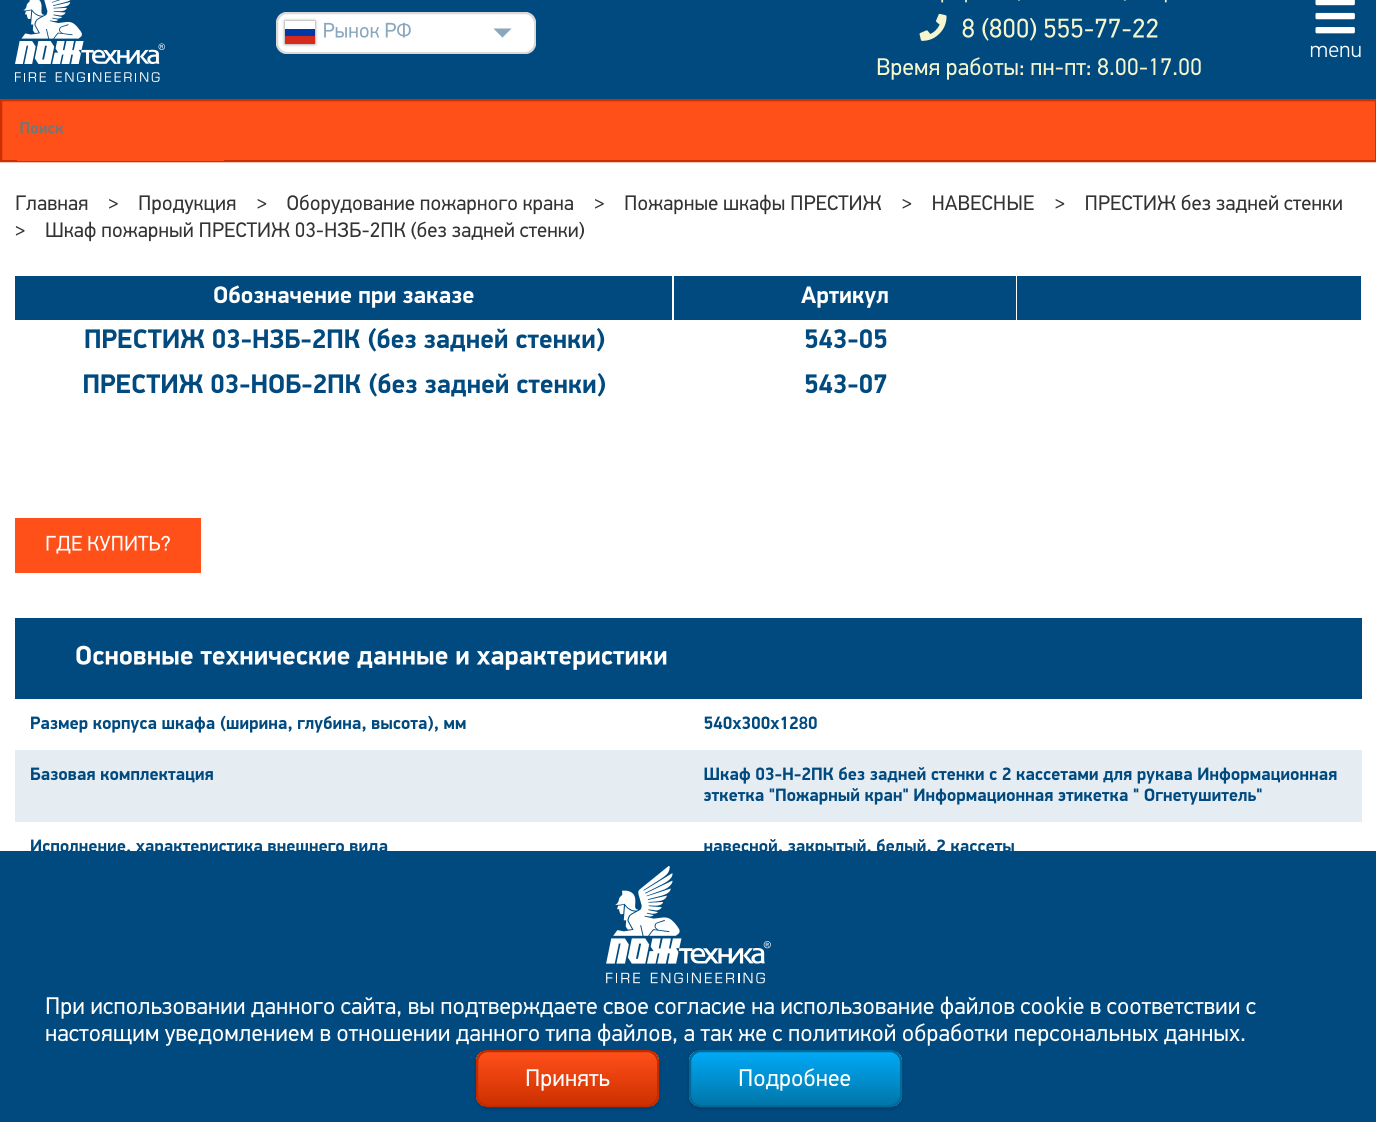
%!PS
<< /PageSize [1376 1122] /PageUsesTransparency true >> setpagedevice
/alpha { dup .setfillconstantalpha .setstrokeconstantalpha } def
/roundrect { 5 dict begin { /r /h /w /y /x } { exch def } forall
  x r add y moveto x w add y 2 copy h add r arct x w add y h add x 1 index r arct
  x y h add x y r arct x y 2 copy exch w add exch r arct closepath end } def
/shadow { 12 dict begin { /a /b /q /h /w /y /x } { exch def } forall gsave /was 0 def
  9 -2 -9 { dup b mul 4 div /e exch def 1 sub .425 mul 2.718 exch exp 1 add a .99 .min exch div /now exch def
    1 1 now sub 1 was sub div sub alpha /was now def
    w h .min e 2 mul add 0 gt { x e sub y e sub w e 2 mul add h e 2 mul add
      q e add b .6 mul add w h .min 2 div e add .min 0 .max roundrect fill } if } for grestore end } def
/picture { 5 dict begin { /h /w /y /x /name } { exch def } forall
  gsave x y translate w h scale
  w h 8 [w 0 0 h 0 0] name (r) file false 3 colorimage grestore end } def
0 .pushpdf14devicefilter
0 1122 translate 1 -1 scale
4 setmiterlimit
1 setgray
0 0 1376 1122 rectfill
0 0.29 0.502 setrgbcolor
0 0 1376 99 rectfill
(img1.rgb) 15 0 150 82 picture
1 setgray
276 12 260 42 11 roundrect fill
0.15 alpha
0 setgray
2 setlinewidth
277 13 258 40 10 roundrect stroke
1 alpha
285 21 30 23 0 1.5 0.5 shadow
1 setgray
285 21 30 8 rectfill
0 0.224 0.651 setrgbcolor
285 29 30 7 rectfill
0.835 0.169 0.118 setrgbcolor
285 36 30 8 rectfill
(img2.rgb) 324 22 87 16 picture
0.541 0.659 0.741 setrgbcolor
newpath 493.5 28.5 moveto 511.5 28.5 lineto 502.5 37.5 lineto closepath fill
(img3.rgb) 941 0 226 3 picture
(img4.rgb) 919 13 28 28 picture
(img5.rgb) 962 17 196 24 picture
(img6.rgb) 877 57 324 23 picture
(img7.rgb) 1315 0 40 34 picture
(img8.rgb) 1310 45 51 13 picture
1 0.314 0.102 setrgbcolor
newpath 1 100 moveto 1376 100 lineto 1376 161 lineto 1 161 lineto closepath gsave fill grestore
0.804 0.188 0 setrgbcolor
stroke
1 0.314 0.102 setrgbcolor
17 160 207 1 rectfill
(img9.rgb) 20 122 44 12 picture
(img10.rgb) 16 195 72 16 picture
(img11.rgb) 109 199 9 10 picture
(img12.rgb) 139 195 97 20 picture
(img13.rgb) 257 199 10 10 picture
(img14.rgb) 287 194 286 21 picture
(img11.rgb) 595 199 9 10 picture
(img15.rgb) 625 194 257 21 picture
(img13.rgb) 902 199 10 10 picture
(img16.rgb) 933 195 101 16 picture
(img13.rgb) 1055 199 10 10 picture
(img17.rgb) 1086 194 256 19 picture
(img18.rgb) 15 226 10 10 picture
(img19.rgb) 46 221 539 21 picture
0 0.29 0.502 setrgbcolor
15 276 657 44 rectfill
(img20.rgb) 214 285 260 23 picture
674 276 342 44 rectfill
(img21.rgb) 801 286 87 22 picture
1017 276 344 44 rectfill
(img22.rgb) 85 328 520 24 picture
(img23.rgb) 805 329 82 20 picture
(img24.rgb) 84 373 521 24 picture
(img25.rgb) 805 374 82 20 picture
1 0.314 0.102 setrgbcolor
15 518 186 55 rectfill
(img26.rgb) 46 535 124 19 picture
0 0.29 0.502 setrgbcolor
15 618 1347 81 rectfill
(img27.rgb) 76 645 591 25 picture
(img28.rgb) 31 715 435 18 picture
(img29.rgb) 704 716 113 14 picture
0.898 0.929 0.949 setrgbcolor
15 750 1347 72 rectfill
(img30.rgb) 31 767 182 16 picture
(img31.rgb) 704 766 633 18 picture
(img32.rgb) 703 788 559 17 picture
(img33.rgb) 31 839 357 12 picture
(img34.rgb) 704 838 310 13 picture
0 0.29 0.502 setrgbcolor
0 851 1376 271 rectfill
(img35.rgb) 606 866 165 118 picture
(img36.rgb) 46 996 1210 23 picture
(img37.rgb) 46 1023 1199 23 picture
0 setgray
476 1052 183 57 12 1.5 0.2 shadow
gsave
476 1050 183 57 12 roundrect clip newpath
gsave newpath 476 1052 moveto 659 1052 lineto 659 1106 lineto 476 1106 lineto closepath clip newpath
<< /ShadingType 2 /ColorSpace /DeviceRGB /Coords [477 1052 477 1106] /Extend [true true] /Function << /FunctionType 2 /Domain [0 1] /C0 [1 0.314 0.102] /C1 [0.804 0.188 0] /N 1 >> >> shfill grestore
grestore
0.741 0.176 0 setrgbcolor
477 1051 181 55 11 roundrect stroke
(img38.rgb) 526 1069 84 22 picture
0 setgray
689 1052 213 57 12 1.5 0.2 shadow
gsave
689 1050 213 57 12 roundrect clip newpath
gsave newpath 689 1052 moveto 902 1052 lineto 902 1106 lineto 689 1106 lineto closepath clip newpath
<< /ShadingType 2 /ColorSpace /DeviceRGB /Coords [690 1052 690 1106] /Extend [true true] /Function << /FunctionType 2 /Domain [0 1] /C0 [0 0.667 0.969] /C1 [0.008 0.459 0.659] /N 1 >> >> shfill grestore
grestore
0.008 0.416 0.6 setrgbcolor
690 1051 211 55 11 roundrect stroke
(img39.rgb) 739 1068 112 23 picture
.poppdf14devicefilter showpage
